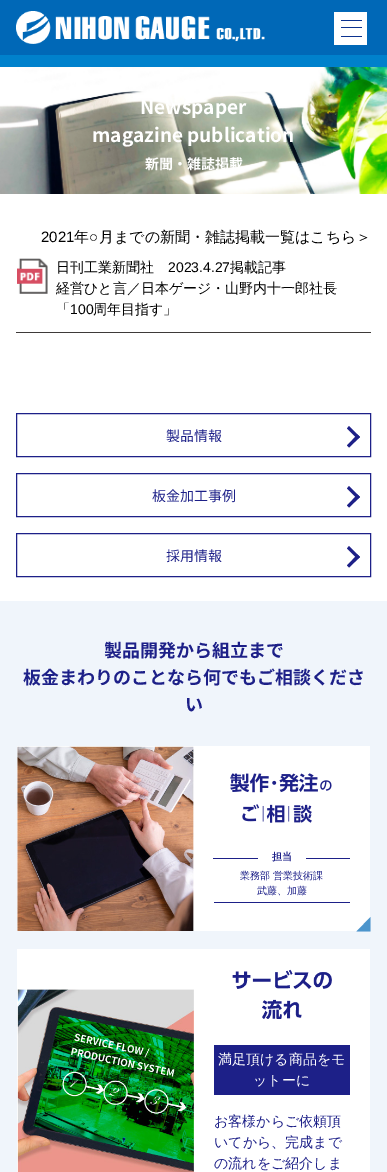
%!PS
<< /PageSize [387 1172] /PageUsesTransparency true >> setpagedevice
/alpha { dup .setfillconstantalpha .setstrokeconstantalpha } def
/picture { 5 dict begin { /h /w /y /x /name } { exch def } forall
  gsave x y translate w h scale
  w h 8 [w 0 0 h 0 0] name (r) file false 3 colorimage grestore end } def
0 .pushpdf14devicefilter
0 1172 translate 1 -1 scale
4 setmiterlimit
1 setgray
0 0 387 1172 rectfill
0 0.408 0.718 setrgbcolor
0 0 387 55 rectfill
(img1.rgb) 16 11 249 33 picture
1 setgray
334 12 33 33 rectfill
0.043 0.192 0.561 setrgbcolor
341 20 21 1 rectfill
341 27 21 1 rectfill
341 36 21 1 rectfill
0 0.506 0.8 setrgbcolor
0 55 387 12 rectfill
(img2.rgb) 0 67 387 127 picture
/NotoSansJP-Bold [19 0 0 -19 0 0] selectfont
1 setgray
140 114 moveto (Newspaper) show
92 142 moveto (magazine publication) show
/NotoSansJP-Bold [14 0 0 -14 0 0] selectfont
145 169 moveto (新聞・雑誌掲載) show
/LiberationSans-Regular [15 0 0 -15 0 0] selectfont
0 setgray
41 242 moveto (2021) show
/WenQuanYiZenHei-Medium [15 0 0 -15 0 0] selectfont
74 242 moveto (年) show
/LiberationSans-Regular [15 0 0 -15 0 0] selectfont
89 242 moveto (○) show
/WenQuanYiZenHei-Medium [15 0 0 -15 0 0] selectfont
99 242 moveto (月までの新聞・雑誌掲載一覧はこちら＞) show
0.243 0.227 0.224 setrgbcolor
16 332 355 1 rectfill
(img3.rgb) 17 258 31 36 picture
/WenQuanYiZenHei-Medium [14 0 0 -14 0 0] selectfont
0 setgray
56 272 moveto (日刊工業新聞社) show
/LiberationSans-Regular [14 0 0 -14 0 0] selectfont
168 272 moveto (2023.4.27) show
/WenQuanYiZenHei-Medium [14 0 0 -14 0 0] selectfont
230 272 moveto (掲載記事) show
56 293 moveto (経営ひと言／日本ゲージ・山野内十一郎社長) show
56 314 moveto (「) show
/LiberationSans-Regular [14 0 0 -14 0 0] selectfont
70 314 moveto (100) show
/WenQuanYiZenHei-Medium [14 0 0 -14 0 0] selectfont
93 314 moveto (周年目指す」) show
0.114 0.125 0.533 setrgbcolor
16.5 413.5 354 43 rectstroke
/NotoSansJP-Regular [14 0 0 -14 0 0] selectfont
166 441 moveto (製品情報) show
newpath 347 428.5 moveto 349 426 lineto 360 437 lineto 357.5 439 lineto closepath fill
newpath 347 445.5 moveto 357.5 434.5 lineto 360 437 lineto 349 447.5 lineto closepath fill
16.5 473.5 354 43 rectstroke
152 501 moveto (板金加工事例) show
newpath 347 488.5 moveto 349 486 lineto 360 497 lineto 357.5 499 lineto closepath fill
newpath 347 505.5 moveto 357.5 494.5 lineto 360 497 lineto 349 507.5 lineto closepath fill
16.5 533.5 354 43 rectstroke
166 561 moveto (採用情報) show
newpath 347 548.5 moveto 349 546 lineto 360 557 lineto 357.5 559 lineto closepath fill
newpath 347 565.5 moveto 357.5 554.5 lineto 360 557 lineto 349 567.5 lineto closepath fill
0.941 0.961 0.984 setrgbcolor
0 601 387 571 rectfill
/NotoSansJP-Bold [18 0 0 -18 0 0] selectfont
0.114 0.125 0.533 setrgbcolor
104 657 moveto (製品開発から組立まで) show
23 684 moveto (板金まわりのことなら何でもご相談くださ) show
185 711 moveto (い) show
1 setgray
194 746 176 185 rectfill
(img4.rgb) 17 746 177 185 picture
(img5.rgb) 230 773 102 50 picture
0.114 0.125 0.533 setrgbcolor
213 858 137 1 rectfill
1 setgray
258 858 48 1 rectfill
/WenQuanYiZenHei-Bold [10 0 0 -10 0 0] selectfont
0.114 0.125 0.533 setrgbcolor
272 860 moveto (担当) show
214 902 136 1 rectfill
/WenQuanYiZenHei-Medium [10 0 0 -10 0 0] selectfont
240 879 moveto (業務部 営業技術課) show
257 894 moveto (武藤、加藤) show
0.7 alpha
0 0.408 0.718 setrgbcolor
newpath 356.5 931.5 moveto 370.5 917 lineto 370.5 931.5 lineto closepath fill
1 alpha
1 setgray
17 949 353 223 rectfill
(img6.rgb) 17 989 177 183 picture
(img7.rgb) 232 969 100 50 picture
0.114 0.125 0.533 setrgbcolor
214 1045 136 50 rectfill
/WenQuanYiZenHei-Medium [14 0 0 -14 0 0] selectfont
1 setgray
218 1064 moveto (満足頂ける商品をモ) show
253 1085 moveto (ットーに) show
0.114 0.125 0.533 setrgbcolor
214 1126 moveto (お客様からご依頼頂) show
214 1147 moveto (いてから、完成まで) show
214 1168 moveto (の流れをご紹介しま) show
.poppdf14devicefilter showpage
